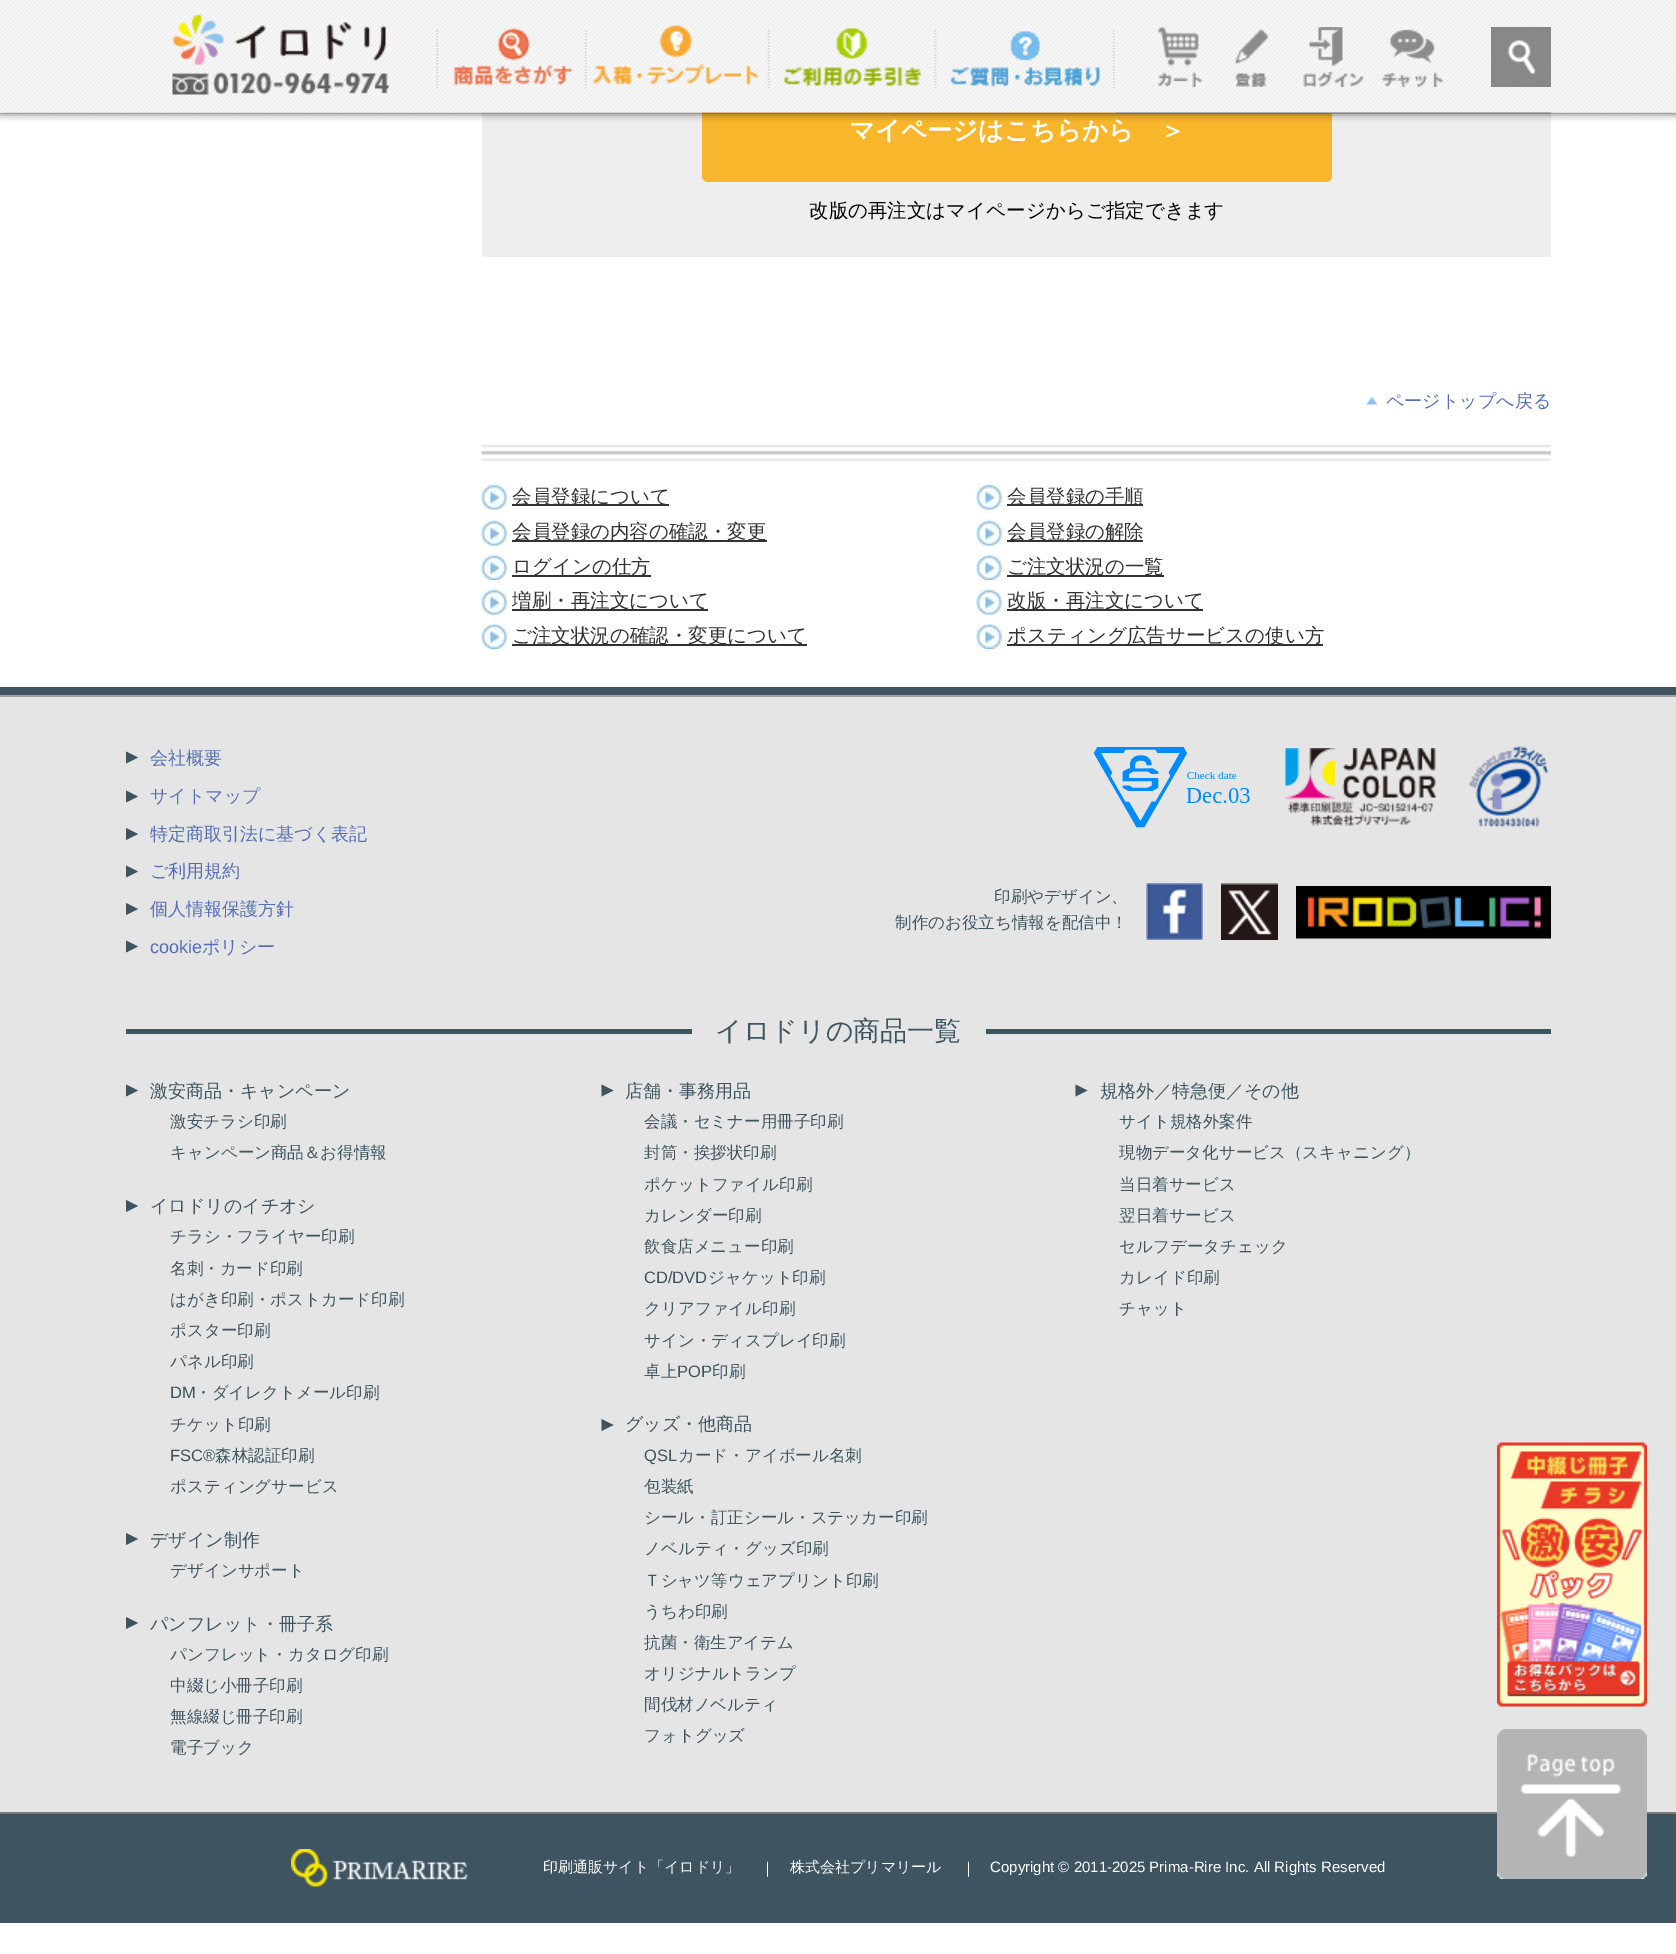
%!PS
<< /PageSize [1676 1954] /PageUsesTransparency true >> setpagedevice
/alpha { dup .setfillconstantalpha .setstrokeconstantalpha } def
/roundrect { 5 dict begin { /r /h /w /y /x } { exch def } forall
  x r add y moveto x w add y 2 copy h add r arct x w add y h add x 1 index r arct
  x y h add x y r arct x y 2 copy exch w add exch r arct closepath end } def
/shadow { 12 dict begin { /a /b /q /h /w /y /x } { exch def } forall gsave /was 0 def
  9 -2 -9 { dup b mul 4 div /e exch def 1 sub .425 mul 2.718 exch exp 1 add a .99 .min exch div /now exch def
    1 1 now sub 1 was sub div sub alpha /was now def
    w h .min e 2 mul add 0 gt { x e sub y e sub w e 2 mul add h e 2 mul add
      q e add b .6 mul add w h .min 2 div e add .min 0 .max roundrect fill } if } for grestore end } def
/picture { 5 dict begin { /h /w /y /x /name } { exch def } forall
  gsave x y translate w h scale
  w h 8 [w 0 0 h 0 0] name (r) file false 3 colorimage grestore end } def
0 .pushpdf14devicefilter
0 1954 translate 1 -1 scale
4 setmiterlimit
1 setgray
0 0 1676 1954 rectfill
0.933 setgray
482 112 1069 145 rectfill
0.973 0.714 0.173 setrgbcolor
702 80 630 102 6 roundrect fill
0.545 setgray
3 setlinewidth
1117.5 58.5 432 53 rectstroke
0.024 0 0.004 setrgbcolor
0 0 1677 113 0 4 0.75 shadow
(img1.rgb) 0 0 1676 113 picture
(img2.rgb) 172 14 266 81 picture
(img3.rgb) 454 28 133 62 picture
(img4.rgb) 592 25 178 65 picture
(img5.rgb) 783 28 154 62 picture
(img6.rgb) 950 29 165 61 picture
(img7.rgb) 1158 27 45 60 picture
(img8.rgb) 1234 29 35 58 picture
(img9.rgb) 1303 27 61 60 picture
(img10.rgb) 1381 29 62 58 picture
(img11.rgb) 1491 27 60 60 picture
/WenQuanYiZenHei-Bold [25.4 0 0 -25.4 0 0] selectfont
1 setgray
849 139 moveto (マイページはこちらから　＞) show
/WenQuanYiZenHei-Medium [19.5 0 0 -19.5 0 0] selectfont
0 setgray
809 217 moveto (改版の再注文はマイページからご指定できます) show
(img12.rgb) 1366 396 12 9 picture
/WenQuanYiZenHei-Medium [18 0 0 -18 0 0] selectfont
0.329 0.435 0.706 setrgbcolor
1386 407 moveto (ページトップへ戻る) show
(img13.rgb) 481 445 1070 17 picture
(img14.rgb) 481 484 26 26 picture
0.196 setgray
512 504 157 2 rectfill
/WenQuanYiZenHei-Medium [19.5 0 0 -19.5 0 0] selectfont
512 503 moveto (会員登録について) show
(img14.rgb) 976 484 26 26 picture
1007 504 136 2 rectfill
1007 503 moveto (会員登録の手順) show
(img14.rgb) 481 520 26 26 picture
512 540 255 2 rectfill
512 538 moveto (会員登録の内容の確認・変更) show
(img14.rgb) 976 520 26 26 picture
1007 540 136 2 rectfill
1007 538 moveto (会員登録の解除) show
(img15.rgb) 481 554 26 26 picture
512 575 139 2 rectfill
512 573 moveto (ログインの仕方) show
(img15.rgb) 976 554 26 26 picture
1007 575 157 2 rectfill
1007 573 moveto (ご注文状況の一覧) show
(img14.rgb) 481 589 26 26 picture
512 609 196 2 rectfill
512 607 moveto (増刷・再注文について) show
(img14.rgb) 976 589 26 26 picture
1007 609 196 2 rectfill
1007 607 moveto (改版・再注文について) show
(img15.rgb) 481 623 26 26 picture
512 644 295 2 rectfill
512 642 moveto (ご注文状況の確認・変更について) show
(img15.rgb) 976 623 26 26 picture
1007 644 316 2 rectfill
1007 642 moveto (ポスティング広告サービスの使い方) show
0.243 0.329 0.38 setrgbcolor
0 687 1676 8 rectfill
0.898 setgray
0 697 1676 1115 rectfill
0.627 setgray
0 695 1676 2 rectfill
0.478 setgray
0 1812 1676 2 rectfill
0.243 0.329 0.38 setrgbcolor
newpath 126 763.5 moveto 126 751.5 lineto 138 757.5 lineto closepath fill
/WenQuanYiZenHei-Medium [18 0 0 -18 0 0] selectfont
0.329 0.435 0.706 setrgbcolor
150 764 moveto (会社概要) show
0.243 0.329 0.38 setrgbcolor
newpath 126 802.5 moveto 126 790.5 lineto 138 796.5 lineto closepath fill
0.329 0.435 0.706 setrgbcolor
150 802 moveto (サイトマップ) show
0.243 0.329 0.38 setrgbcolor
newpath 126 840 moveto 126 828 lineto 138 834 lineto closepath fill
0.329 0.435 0.706 setrgbcolor
150 840 moveto (特定商取引法に基づく表記) show
0.243 0.329 0.38 setrgbcolor
newpath 126 877.5 moveto 126 865.5 lineto 138 871.5 lineto closepath fill
0.329 0.435 0.706 setrgbcolor
150 877 moveto (ご利用規約) show
0.243 0.329 0.38 setrgbcolor
newpath 126 915 moveto 126 903 lineto 138 909 lineto closepath fill
0.329 0.435 0.706 setrgbcolor
150 915 moveto (個人情報保護方針) show
0.243 0.329 0.38 setrgbcolor
newpath 126 952.5 moveto 126 940.5 lineto 138 946.5 lineto closepath fill
/LiberationSans-Regular [18 0 0 -18 0 0] selectfont
0.329 0.435 0.706 setrgbcolor
150 953 moveto (cookie) show
/WenQuanYiZenHei-Medium [18 0 0 -18 0 0] selectfont
202 953 moveto (ポリシー) show
(img16.rgb) 1094 747 156 81 picture
(img17.rgb) 1285 748 151 78 picture
(img18.rgb) 1468 746 81 82 picture
/WenQuanYiZenHei-Medium [16.5 0 0 -16.5 0 0] selectfont
0.243 0.329 0.38 setrgbcolor
994 902 moveto (印刷やデザイン、) show
895 928 moveto (制作のお役立ち情報を配信中！) show
(img19.rgb) 1146 883 57 57 picture
(img20.rgb) 1221 883 57 57 picture
(img21.rgb) 1296 886 255 53 picture
126 1029 566 5 rectfill
/WenQuanYiZenHei-Medium [27 0 0 -27 0 0] selectfont
715 1040 moveto (イロドリの商品一覧) show
986 1029 565 5 rectfill
newpath 126 1096.5 moveto 126 1084.5 lineto 138 1090.5 lineto closepath fill
/WenQuanYiZenHei-Medium [18 0 0 -18 0 0] selectfont
150 1097 moveto (激安商品・キャンペーン) show
/WenQuanYiZenHei-Medium [16.5 0 0 -16.5 0 0] selectfont
170 1127 moveto (激安チラシ印刷) show
170 1158 moveto (キャンペーン商品＆お得情報) show
newpath 126 1212 moveto 126 1200 lineto 138 1206 lineto closepath fill
/WenQuanYiZenHei-Medium [18 0 0 -18 0 0] selectfont
150 1212 moveto (イロドリのイチオシ) show
/WenQuanYiZenHei-Medium [16.5 0 0 -16.5 0 0] selectfont
170 1242 moveto (チラシ・フライヤー印刷) show
170 1274 moveto (名刺・カード印刷) show
170 1305 moveto (はがき印刷・ポストカード印刷) show
170 1336 moveto (ポスター印刷) show
170 1367 moveto (パネル印刷) show
/LiberationSans-Regular [16.5 0 0 -16.5 0 0] selectfont
170 1398 moveto (DM) show
/WenQuanYiZenHei-Medium [16.5 0 0 -16.5 0 0] selectfont
195 1398 moveto (・ダイレクトメール印刷) show
170 1430 moveto (チケット印刷) show
/LiberationSans-Regular [16.5 0 0 -16.5 0 0] selectfont
170 1461 moveto (FSC®) show
/WenQuanYiZenHei-Medium [16.5 0 0 -16.5 0 0] selectfont
215 1461 moveto (森林認証印刷) show
170 1492 moveto (ポスティングサービス) show
newpath 126 1545 moveto 126 1533 lineto 138 1539 lineto closepath fill
/WenQuanYiZenHei-Medium [18 0 0 -18 0 0] selectfont
150 1546 moveto (デザイン制作) show
/WenQuanYiZenHei-Medium [16.5 0 0 -16.5 0 0] selectfont
170 1576 moveto (デザインサポート) show
newpath 126 1629 moveto 126 1617 lineto 138 1623 lineto closepath fill
/WenQuanYiZenHei-Medium [18 0 0 -18 0 0] selectfont
150 1630 moveto (パンフレット・冊子系) show
/WenQuanYiZenHei-Medium [16.5 0 0 -16.5 0 0] selectfont
170 1660 moveto (パンフレット・カタログ印刷) show
170 1691 moveto (中綴じ小冊子印刷) show
170 1722 moveto (無線綴じ冊子印刷) show
170 1753 moveto (電子ブック) show
newpath 601.5 1096.5 moveto 601.5 1084.5 lineto 613.5 1090.5 lineto closepath fill
/WenQuanYiZenHei-Medium [18 0 0 -18 0 0] selectfont
625 1097 moveto (店舗・事務用品) show
/WenQuanYiZenHei-Medium [16.5 0 0 -16.5 0 0] selectfont
644 1127 moveto (会議・セミナー用冊子印刷) show
644 1158 moveto (封筒・挨拶状印刷) show
644 1190 moveto (ポケットファイル印刷) show
644 1221 moveto (カレンダー印刷) show
644 1252 moveto (飲食店メニュー印刷) show
/LiberationSans-Regular [16.5 0 0 -16.5 0 0] selectfont
644 1283 moveto (CD/DVD) show
/WenQuanYiZenHei-Medium [16.5 0 0 -16.5 0 0] selectfont
708 1283 moveto (ジャケット印刷) show
644 1314 moveto (クリアファイル印刷) show
644 1346 moveto (サイン・ディスプレイ印刷) show
644 1377 moveto (卓上) show
/LiberationSans-Regular [16.5 0 0 -16.5 0 0] selectfont
677 1377 moveto (POP) show
/WenQuanYiZenHei-Medium [16.5 0 0 -16.5 0 0] selectfont
712 1377 moveto (印刷) show
newpath 601.5 1431 moveto 601.5 1419 lineto 613.5 1425 lineto closepath fill
/WenQuanYiZenHei-Medium [18 0 0 -18 0 0] selectfont
625 1430 moveto (グッズ・他商品) show
/LiberationSans-Regular [16.5 0 0 -16.5 0 0] selectfont
644 1461 moveto (QSL) show
/WenQuanYiZenHei-Medium [16.5 0 0 -16.5 0 0] selectfont
678 1461 moveto (カード・アイボール名刺) show
644 1492 moveto (包装紙) show
644 1523 moveto (シール・訂正シール・ステッカー印刷) show
644 1554 moveto (ノベルティ・グッズ印刷) show
644 1586 moveto (Ｔシャツ等ウェアプリント印刷) show
644 1617 moveto (うちわ印刷) show
644 1648 moveto (抗菌・衛生アイテム) show
644 1679 moveto (オリジナルトランプ) show
644 1710 moveto (間伐材ノベルティ) show
644 1741 moveto (フォトグッズ) show
newpath 1075.5 1096.5 moveto 1075.5 1084.5 lineto 1087.5 1090.5 lineto closepath fill
/WenQuanYiZenHei-Medium [18 0 0 -18 0 0] selectfont
1100 1097 moveto (規格外／特急便／その他) show
/WenQuanYiZenHei-Medium [16.5 0 0 -16.5 0 0] selectfont
1119 1127 moveto (サイト規格外案件) show
1119 1158 moveto (現物データ化サービス（スキャニング）) show
1119 1190 moveto (当日着サービス) show
1119 1221 moveto (翌日着サービス) show
1119 1252 moveto (セルフデータチェック) show
1119 1283 moveto (カレイド印刷) show
1119 1314 moveto (チャット) show
0 1814 1676 109 rectfill
(img22.rgb) 291 1849 177 38 picture
/WenQuanYiZenHei-Medium [15 0 0 -15 0 0] selectfont
1 setgray
543 1872 moveto (印刷通販サイト「イロドリ」) show
760 1873 moveto (｜) show
790 1872 moveto (株式会社プリマリール) show
961 1873 moveto (｜) show
/LiberationSans-Regular [15 0 0 -15 0 0] selectfont
990 1872 moveto (Copyright © 2011-2025 Prima-Rire Inc. All Rights Reserved) show
(img23.rgb) 1497 1442 150 265 picture
(img24.rgb) 1497 1729 150 150 picture
.poppdf14devicefilter showpage
